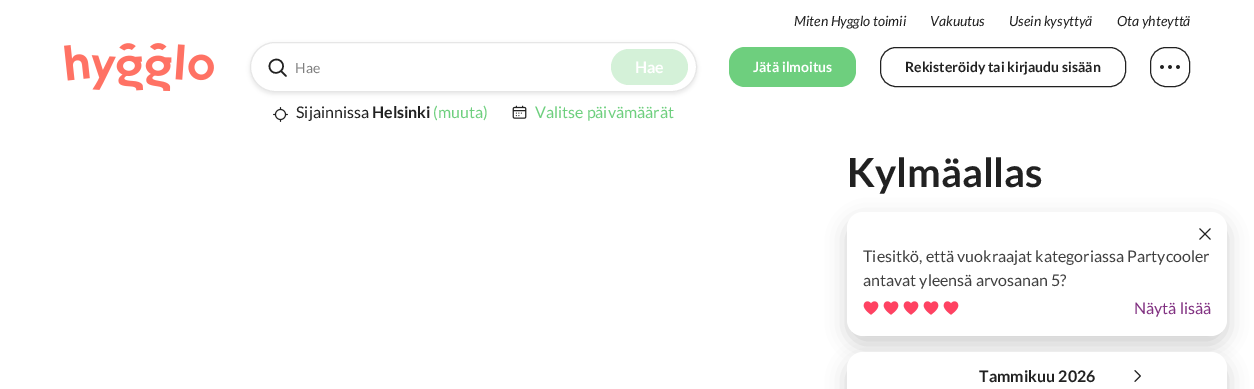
%!PS
<< /PageSize [1254 389] /PageUsesTransparency true >> setpagedevice
/alpha { dup .setfillconstantalpha .setstrokeconstantalpha } def
/roundrect { 5 dict begin { /r /h /w /y /x } { exch def } forall
  x r add y moveto x w add y 2 copy h add r arct x w add y h add x 1 index r arct
  x y h add x y r arct x y 2 copy exch w add exch r arct closepath end } def
/shadow { 12 dict begin { /a /b /q /h /w /y /x } { exch def } forall gsave /was 0 def
  9 -2 -9 { dup b mul 4 div /e exch def 1 sub .425 mul 2.718 exch exp 1 add a .99 .min exch div /now exch def
    1 1 now sub 1 was sub div sub alpha /was now def
    w h .min e 2 mul add 0 gt { x e sub y e sub w e 2 mul add h e 2 mul add
      q e add b .6 mul add w h .min 2 div e add .min 0 .max roundrect fill } if } for grestore end } def
/picture { 5 dict begin { /h /w /y /x /name } { exch def } forall
  gsave x y translate w h scale
  w h 8 [w 0 0 h 0 0] name (r) file false 3 colorimage grestore end } def
0 .pushpdf14devicefilter
0 389 translate 1 -1 scale
4 setmiterlimit
1 setgray
0 0 1254 389 rectfill
/Lato-Italic [14 0 0 -14 0 0] selectfont
0.129 setgray
794 26 moveto (Miten Hygglo toimii) show
930 26 moveto (Vakuutus) show
1009 26 moveto (Usein kysyttyä) show
1117 26 moveto (Ota yhteyttä) show
(img1.rgb) 64 43 150 48 picture
0.102 setgray
250 44 447 50 25 2 0.1 shadow
1 setgray
250.5 42.5 446 49 24.5 roundrect gsave fill grestore
0.902 setgray
stroke
0.129 setgray
1.5 setlinewidth
1 setlinecap
1 setlinejoin
newpath 270 69 moveto 273.5 77 286 71.5 282.5 63.5 curveto 279 55.5 266.5 60.5 270 69 curveto closepath 281 71 moveto 286 76 lineto stroke
/Lato-Regular [14 0 0 -14 0 0] selectfont
0.502 setgray
295 73 moveto (Hae) show
0.831 0.945 0.847 setrgbcolor
611 49 77 36 18 roundrect fill
/Lato-Bold [16 0 0 -16 0 0] selectfont
1 setgray
635 73 moveto (Hae) show
(img2.rgb) 273 107 15 15 picture
/Lato-Regular [16 0 0 -16 0 0] selectfont
0.129 setgray
296 118 moveto (Sijainnissa) show
/Lato-Bold [16 0 0 -16 0 0] selectfont
372 118 moveto (Helsinki) show
/Lato-Regular [16 0 0 -16 0 0] selectfont
0.431 0.812 0.494 setrgbcolor
433 118 moveto (\(muuta\)) show
(img3.rgb) 512 105 15 14 picture
535 118 moveto (Valitse päivämäärät) show
729 47 127 40 16 roundrect fill
/Lato-Bold [14 0 0 -14 0 0] selectfont
1 setgray
753 72 moveto (Jätä ilmoitus) show
0.129 setgray
1 setlinewidth
0 setlinecap
0 setlinejoin
880.5 47.5 245 39 15.5 roundrect stroke
905 72 moveto (Rekisteröidy tai kirjaudu sisään) show
1150.5 47.5 39 39 15.5 roundrect stroke
(img4.rgb) 1160 65 20 4 picture
/Lato-Bold [40 0 0 -40 0 0] selectfont
847 187 moveto (Kylmäallas) show
0.102 setgray
847 220 380 124 16 10 0.2 shadow
1 setgray
847 212 380 124 16 roundrect fill
(img5.rgb) 1199 228 12 12 picture
/Lato-Regular [16 0 0 -16 0 0] selectfont
0.251 setgray
863 262 moveto (Tiesitkö, että vuokraajat kategoriassa Partycooler) show
863 286 moveto (antavat yleensä arvosanan 5?) show
(img6.rgb) 863 301 16 14 picture
(img6.rgb) 883 301 16 14 picture
(img6.rgb) 903 301 16 14 picture
(img6.rgb) 923 301 16 14 picture
(img6.rgb) 943 301 16 14 picture
(img7.rgb) 863 301 16 14 picture
(img7.rgb) 883 301 16 14 picture
(img7.rgb) 903 301 16 14 picture
(img7.rgb) 923 301 16 14 picture
(img7.rgb) 943 301 16 14 picture
0.506 0.192 0.506 setrgbcolor
1134 314 moveto (Näytä lisää) show
0.102 setgray
847 360 380 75 16 10 0.2 shadow
1 setgray
847 352 380 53 16 roundrect fill
/Lato-Bold [16 0 0 -16 0 0] selectfont
0.129 setgray
979 382 moveto (Tammikuu 2026) show
(img8.rgb) 1134 370 7 12 picture
.poppdf14devicefilter showpage
